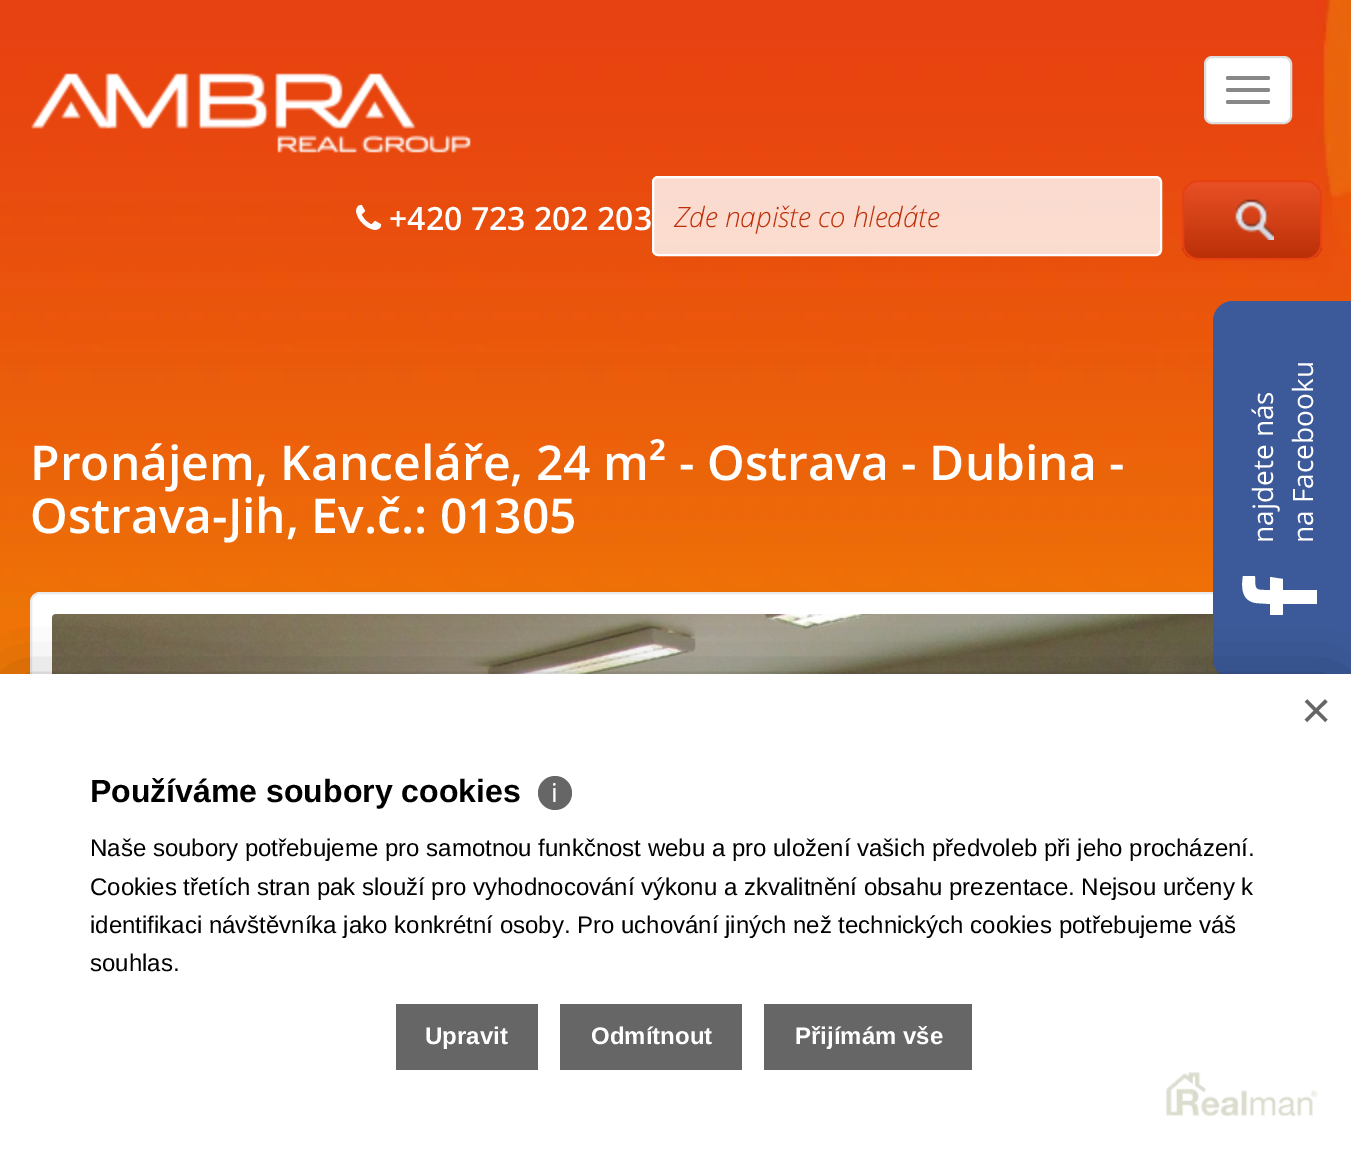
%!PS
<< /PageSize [1351 1149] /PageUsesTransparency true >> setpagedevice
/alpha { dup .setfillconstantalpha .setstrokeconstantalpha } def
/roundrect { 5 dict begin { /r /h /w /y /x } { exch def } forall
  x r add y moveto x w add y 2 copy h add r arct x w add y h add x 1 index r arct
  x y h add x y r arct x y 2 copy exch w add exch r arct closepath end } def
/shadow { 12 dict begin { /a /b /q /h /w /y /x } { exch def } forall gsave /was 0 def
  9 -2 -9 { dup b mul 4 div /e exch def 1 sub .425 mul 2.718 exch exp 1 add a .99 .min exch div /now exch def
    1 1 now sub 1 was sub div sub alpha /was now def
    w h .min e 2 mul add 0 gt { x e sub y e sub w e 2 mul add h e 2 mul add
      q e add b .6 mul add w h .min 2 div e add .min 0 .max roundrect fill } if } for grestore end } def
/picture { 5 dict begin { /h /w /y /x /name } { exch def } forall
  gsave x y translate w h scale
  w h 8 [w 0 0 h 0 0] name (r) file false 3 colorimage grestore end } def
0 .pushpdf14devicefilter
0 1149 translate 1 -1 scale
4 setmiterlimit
1 setgray
0 0 1351 1149 rectfill
(img1.rgb) 0 0 1351 674 picture
(img2.rgb) 31 73 440 80 picture
1205 57 86 66 7 roundrect gsave fill grestore
0.867 setgray
2 setlinewidth
stroke
0.533 setgray
1226 76 44 4 2 roundrect fill
1226 88 44 4 2 roundrect fill
1226 100 44 4 2 roundrect fill
(img3.rgb) 356 204 26 26 picture
/OpenSans-SemiBold [32 0 0 -32 0 0] selectfont
1 setgray
389 230 moveto (+420 723 202 203) show
0.8 alpha
653 177 508 78 5 roundrect fill
1 alpha
653 177 508 78 5 roundrect stroke
/OpenSans-LightItalic [28 0 0 -28 0 0] selectfont
0.741 0.188 0.035 setrgbcolor
674 227 moveto (Zde napište co hledáte) show
gsave
1182 180 140 80 16 roundrect clip newpath
gsave newpath 1182 182 moveto 1322 182 lineto 1322 258 lineto 1182 258 lineto closepath clip newpath
<< /ShadingType 2 /ColorSpace /DeviceRGB /Coords [1252 182 1252 258] /Extend [true true] /Function << /FunctionType 2 /Domain [0 1] /C0 [0.914 0.314 0.145] /C1 [0.733 0.188 0.031] /N 1 >> >> shfill grestore
grestore
0.906 0.251 0.067 setrgbcolor
1183 181 138 78 15 roundrect stroke
(img4.rgb) 1235 198 39 42 picture
/OpenSans-SemiBold [48 0 0 -48 0 0] selectfont
1 setgray
30 480 moveto (Pronájem, Kanceláře, 24 m² - Ostrava - Dubina -) show
30 533 moveto (Ostrava-Jih, Ev.č.: 01305) show
31 593 1290 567 9 roundrect gsave fill grestore
0.914 setgray
stroke
(img5.rgb) 52 614 1168 60 picture
0.235 0.353 0.6 setrgbcolor
newpath 1213 659 moveto 1213 321 lineto 1213 310 1222 301 1233 301 curveto 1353 301 lineto 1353 679 lineto 1233 679 lineto 1222 679 1213 670 1213 659 curveto closepath fill
/OpenSans-Regular [28 0 0 -28 0 0] selectfont
1 setgray
gsave 1273 543 translate -90 rotate 0 0 moveto (najdete nás) show grestore
gsave 1313 543 translate -90 rotate 0 0 moveto (na Facebooku) show grestore
newpath 1243 576 moveto 1255 576 lineto 1255 591 1255 590 1270 590 curveto 1270 577 lineto 1283 579 lineto 1283 590 lineto 1317 590 lineto 1317 604 lineto 1283 604 lineto 1283 615 lineto 1270 615 lineto 1270 604 lineto 1256 603 lineto 1242 601 1241 588 1243 576 curveto closepath fill
0 setgray
20 694 1312 436 0 30 0.5 shadow
1 setgray
0 674 1351 475 rectfill
(img6.rgb) 1166 1072 152 44 picture
/LiberationSans-Regular [52 0 0 -52 0 0] selectfont
0.4 setgray
1301 728 moveto (×) show
/LiberationSans-Bold [32 0 0 -32 0 0] selectfont
0 setgray
90 802 moveto (Používáme soubory cookies) show
0.4 setgray
newpath 555 793 17 0 360 arc closepath fill
/NotoSans-Regular [26 0 0 -26 0 0] selectfont
1 setgray
551 802 moveto (ℹ) show
/LiberationSans-Regular [24 0 0 -24 0 0] selectfont
0 setgray
90 856 moveto (Naše soubory potřebujeme pro samotnou funkčnost webu a pro uložení vašich předvoleb při jeho procházení.) show
90 895 moveto (Cookies třetích stran pak slouží pro vyhodnocování výkonu a zkvalitnění obsahu prezentace. Nejsou určeny k) show
90 933 moveto (identifikaci návštěvníka jako konkrétní osoby. Pro uchování jiných než technických cookies potřebujeme váš) show
90 971 moveto (souhlas.) show
0.4 setgray
396 1004 142 66 rectfill
/LiberationSans-Bold [24 0 0 -24 0 0] selectfont
1 setgray
425 1044 moveto (Upravit) show
0.4 setgray
560 1004 182 66 rectfill
1 setgray
591 1044 moveto (Odmítnout) show
0.4 setgray
764 1004 208 66 rectfill
1 setgray
795 1044 moveto (Přijímám vše) show
.poppdf14devicefilter showpage
